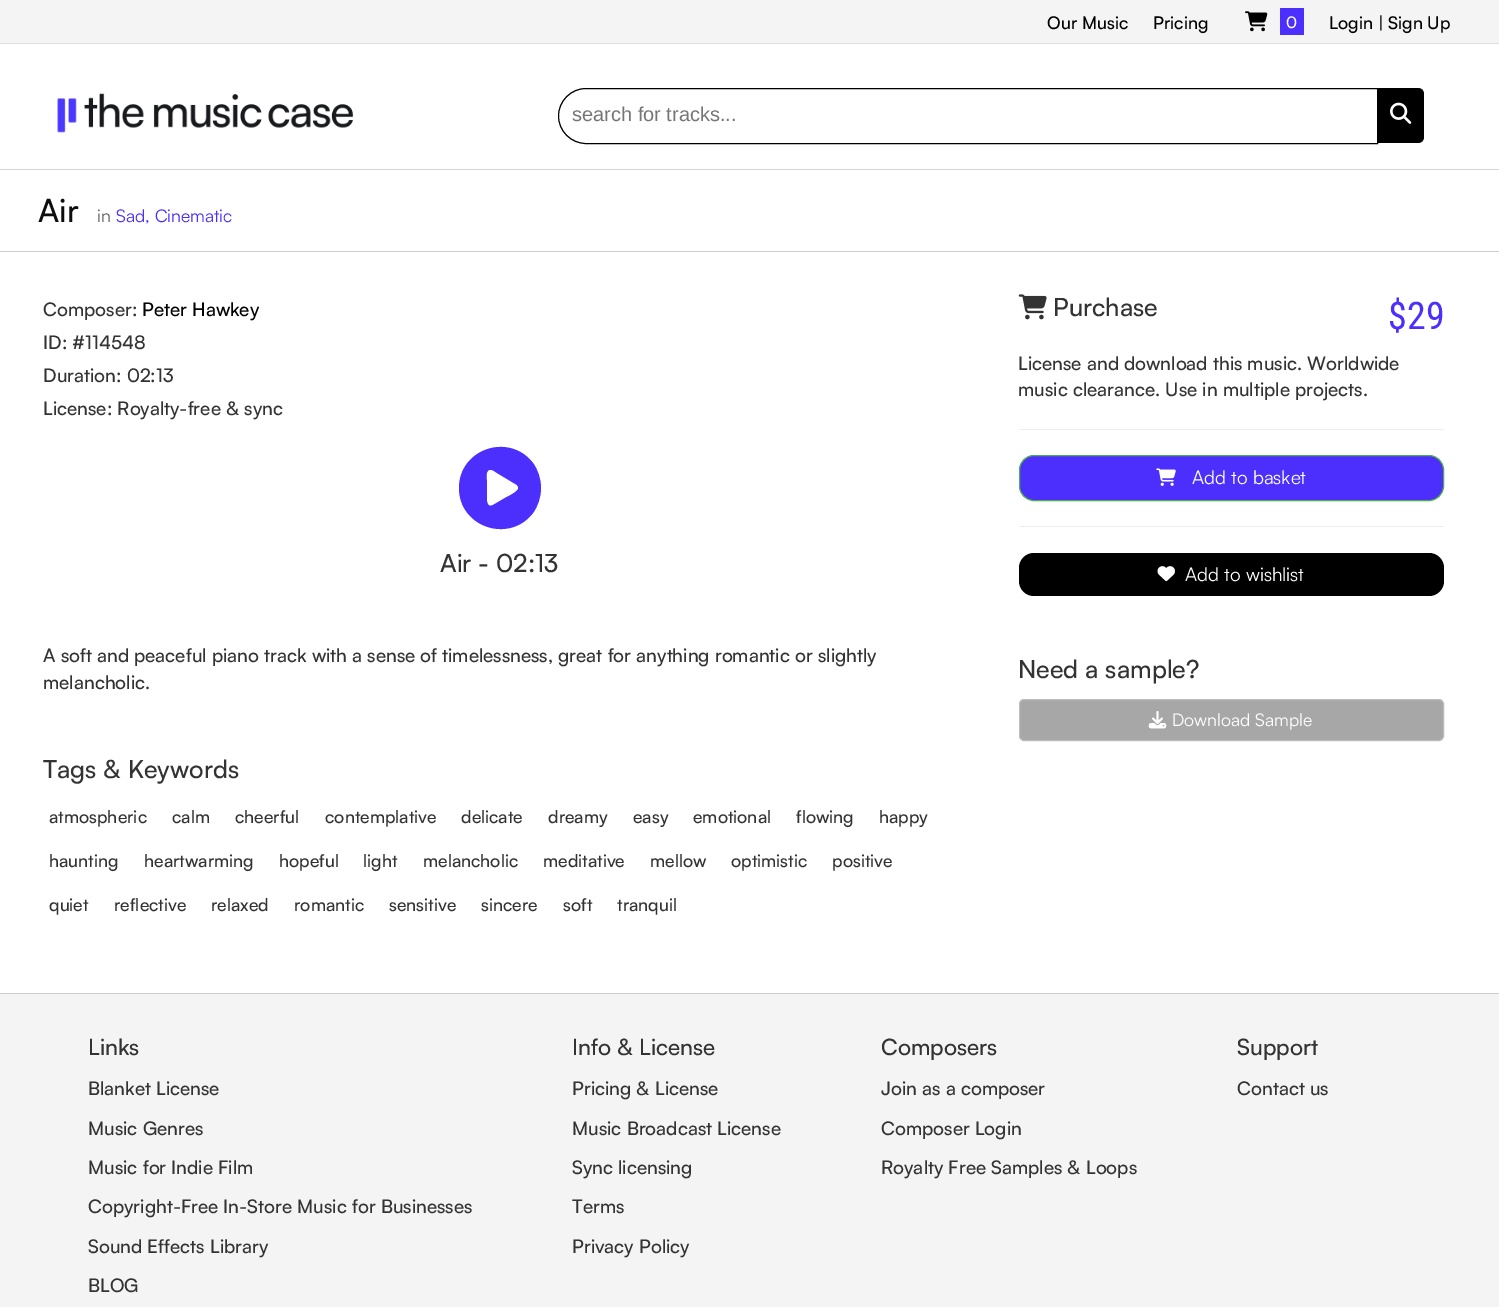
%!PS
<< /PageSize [1499 1307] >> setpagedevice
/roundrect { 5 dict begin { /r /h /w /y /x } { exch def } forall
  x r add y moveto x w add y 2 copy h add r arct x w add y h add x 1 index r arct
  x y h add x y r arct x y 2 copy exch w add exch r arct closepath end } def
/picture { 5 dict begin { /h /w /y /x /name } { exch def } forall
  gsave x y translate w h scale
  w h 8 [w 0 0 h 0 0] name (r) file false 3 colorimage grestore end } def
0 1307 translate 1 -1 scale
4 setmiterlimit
1 setgray
0 0 1499 1307 rectfill
0.957 setgray
0 0 1499 43 rectfill
0.867 setgray
0 43 1499 1 rectfill
/Satoshi-Medium [17.5 0 0 -17.5 0 0] selectfont
0 setgray
1047 29 moveto (Our Music) show
1153 29 moveto (Pricing) show
(img1.rgb) 1245 11 23 21 picture
0.298 0.184 0.988 setrgbcolor
1280 8 24 27 1 roundrect fill
/Satoshi-Medium [16 0 0 -16 0 0] selectfont
1 setgray
1286 28 moveto (0) show
/Satoshi-Medium [17.5 0 0 -17.5 0 0] selectfont
0 setgray
1329 29 moveto (Login | Sign Up) show
(img2.rgb) 57 93 297 40 picture
newpath 586 88.5 moveto 1377.5 88.5 lineto 1377.5 143.5 lineto 586 143.5 lineto 571 143.5 558.5 131 558.5 116 curveto 558.5 101 571 88.5 586 88.5 curveto closepath stroke
/LiberationSans-Regular [20 0 0 -20 0 0] selectfont
0.463 setgray
572 121 moveto (search for tracks...) show
0 setgray
newpath 1378 88 moveto 1418 88 lineto 1421.5 88 1424 90.5 1424 94 curveto 1424 137 lineto 1424 140.5 1421.5 143 1418 143 curveto 1378 143 lineto closepath fill
(img3.rgb) 1390 102 22 22 picture
0.839 setgray
0 169 1499 1 rectfill
/Satoshi-Medium [32 0 0 -32 0 0] selectfont
0.055 setgray
38 222 moveto (Air) show
/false-Regular [17.5 0 0 -17.5 0 0] selectfont
0.4 setgray
97 222 moveto (in) show
0.298 0.184 0.988 setrgbcolor
116 222 moveto (Sad, Cinematic) show
0.8 setgray
0 251 1499 1 rectfill
/Satoshi-Medium [18.75 0 0 -18.75 0 0] selectfont
0.2 setgray
43 316 moveto (Composer:) show
0 setgray
142 316 moveto (Peter Hawkey) show
0.2 setgray
43 349 moveto (ID: #114548) show
43 382 moveto (Duration: 02:13) show
43 415 moveto (License: Royalty-free & sync) show
0.298 0.184 0.988 setrgbcolor
newpath 459 488 moveto 459 449 509 432 533 463 curveto 538 470 541 479 541 488 curveto 541 497 538 506 533 513 curveto 509 544 459 527 459 488 curveto closepath 489 470 moveto 485 472 487 480 487 483 curveto 487 493 lineto 487 495 485 509 493 505 curveto 505 498 lineto 507 497 517 492 518 489 curveto 519 485 515 484 512 482 curveto 497 473 lineto 494 471 492 469 489 470 curveto closepath fill
/Satoshi-Medium [25 0 0 -25 0 0] selectfont
0.2 setgray
440 572 moveto (Air - 02:13) show
/Satoshi-Medium [18.75 0 0 -18.75 0 0] selectfont
43 662 moveto (A soft and peaceful piano track with a sense of timelessness, great for anything romantic or slightly) show
43 689 moveto (melancholic.) show
/Satoshi-Medium [25 0 0 -25 0 0] selectfont
43 778 moveto (Tags & Keywords) show
/Satoshi-Medium [17.5 0 0 -17.5 0 0] selectfont
49 823 moveto (atmospheric) show
172 823 moveto (calm) show
235 823 moveto (cheerful) show
325 823 moveto (contemplative) show
461 823 moveto (delicate) show
548 823 moveto (dreamy) show
633 823 moveto (easy) show
693 823 moveto (emotional) show
796 823 moveto (flowing) show
879 823 moveto (happy) show
49 867 moveto (haunting) show
144 867 moveto (heartwarming) show
279 867 moveto (hopeful) show
363 867 moveto (light) show
423 867 moveto (melancholic) show
543 867 moveto (meditative) show
650 867 moveto (mellow) show
731 867 moveto (optimistic) show
832 867 moveto (positive) show
49 911 moveto (quiet) show
114 911 moveto (reflective) show
211 911 moveto (relaxed) show
294 911 moveto (romantic) show
389 911 moveto (sensitive) show
481 911 moveto (sincere) show
563 911 moveto (soft) show
617 911 moveto (tranquil) show
(img4.rgb) 1018 294 29 26 picture
/Satoshi-Medium [25 0 0 -25 0 0] selectfont
1053 316 moveto (Purchase) show
/RobotoCondensed-Regular [38 0 0 -38 0 0] selectfont
0.298 0.184 0.988 setrgbcolor
1388 329 moveto ($29) show
/Satoshi-Medium [18.75 0 0 -18.75 0 0] selectfont
0.2 setgray
1018 370 moveto (License and download this music. Worldwide) show
1018 396 moveto (music clearance. Use in multiple projects.) show
0.933 setgray
1019 429 425 1 rectfill
0.298 0.184 0.988 setrgbcolor
1019.5 455.5 424 45 14.5 roundrect gsave fill grestore
0.298 0.682 0.298 setrgbcolor
stroke
(img5.rgb) 1156 468 20 18 picture
/false-Regular [18.75 0 0 -18.75 0 0] selectfont
1 setgray
1192 484 moveto (Add to basket) show
0.933 setgray
1019 526 425 1 rectfill
0 setgray
1019 553 425 43 15 roundrect fill
(img6.rgb) 1157 566 18 16 picture
1 setgray
1185 581 moveto (Add to wishlist) show
/Satoshi-Medium [25 0 0 -25 0 0] selectfont
0.2 setgray
1018 678 moveto (Need a sample?) show
0.655 setgray
1019.5 699.5 424 41 4.5 roundrect gsave fill grestore
0.741 setgray
stroke
(img7.rgb) 1148 711 19 18 picture
/false-Regular [17.5 0 0 -17.5 0 0] selectfont
1 setgray
1172 726 moveto (Download Sample) show
0.957 setgray
0 994 1499 313 rectfill
0.8 setgray
0 993 1499 1 rectfill
/Satoshi-Medium [22.5 0 0 -22.5 0 0] selectfont
0.2 setgray
88 1055 moveto (Links) show
/Satoshi-Medium [18.75 0 0 -18.75 0 0] selectfont
88 1095 moveto (Blanket License) show
88 1135 moveto (Music Genres) show
88 1174 moveto (Music for Indie Film) show
88 1213 moveto (Copyright-Free In-Store Music for Businesses) show
88 1253 moveto (Sound Effects Library) show
88 1292 moveto (BLOG) show
/Satoshi-Medium [22.5 0 0 -22.5 0 0] selectfont
572 1055 moveto (Info & License) show
/Satoshi-Medium [18.75 0 0 -18.75 0 0] selectfont
572 1095 moveto (Pricing & License) show
572 1135 moveto (Music Broadcast License) show
572 1174 moveto (Sync licensing) show
572 1213 moveto (Terms) show
572 1253 moveto (Privacy Policy) show
/Satoshi-Medium [22.5 0 0 -22.5 0 0] selectfont
881 1055 moveto (Composers) show
/Satoshi-Medium [18.75 0 0 -18.75 0 0] selectfont
881 1095 moveto (Join as a composer) show
881 1135 moveto (Composer Login) show
881 1174 moveto (Royalty Free Samples & Loops) show
/Satoshi-Medium [22.5 0 0 -22.5 0 0] selectfont
1237 1055 moveto (Support) show
/Satoshi-Medium [18.75 0 0 -18.75 0 0] selectfont
1237 1095 moveto (Contact us) show
showpage
